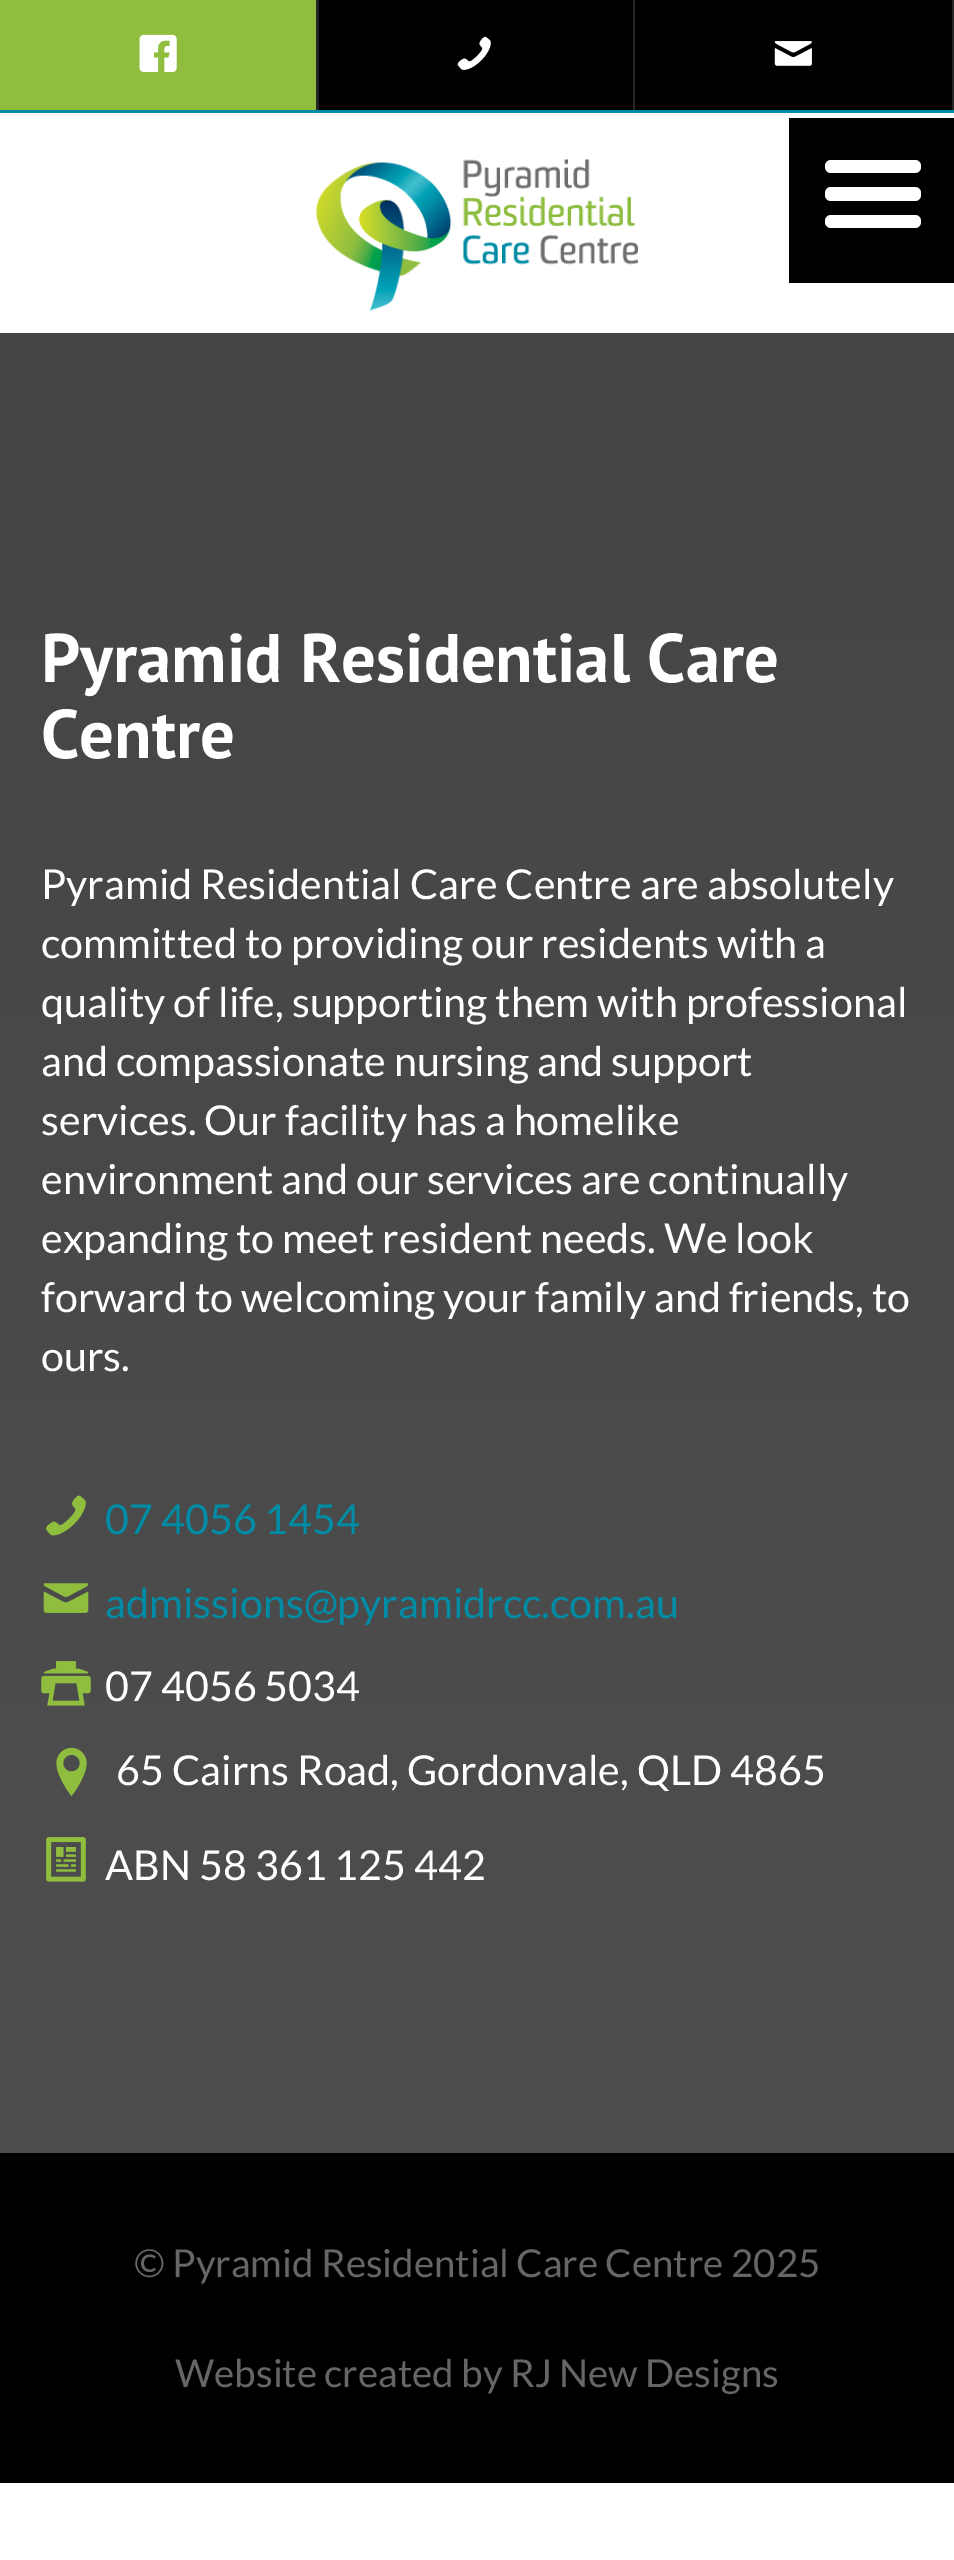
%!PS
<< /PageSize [954 2560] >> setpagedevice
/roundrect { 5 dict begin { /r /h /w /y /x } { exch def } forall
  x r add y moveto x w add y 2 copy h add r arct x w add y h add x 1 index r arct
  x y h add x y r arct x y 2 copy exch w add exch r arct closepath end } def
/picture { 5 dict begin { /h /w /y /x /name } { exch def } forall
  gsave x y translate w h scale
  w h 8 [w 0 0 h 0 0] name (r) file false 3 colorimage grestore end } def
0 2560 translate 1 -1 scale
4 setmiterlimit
1 setgray
0 0 954 2560 rectfill
0 0.549 0.647 setrgbcolor
0 110 954 3 rectfill
0.149 setgray
316 0 3 110 rectfill
0.561 0.745 0.243 setrgbcolor
0 0 316 110 rectfill
(img1.rgb) 139 34 38 38 picture
0.149 setgray
633 0 2 110 rectfill
0 setgray
319 0 314 110 rectfill
(img2.rgb) 457 36 34 34 picture
0.149 setgray
952 0 2 110 rectfill
0 setgray
635 0 317 110 rectfill
(img3.rgb) 774 41 38 25 picture
(img4.rgb) 316 159 322 152 picture
789 118 165 165 rectfill
1 setgray
825 187 96 14 6 roundrect fill
825 160 96 13 6 roundrect fill
825 215 96 13 6 roundrect fill
gsave newpath 0 333 moveto 954 333 lineto 954 2153 lineto 0 2153 lineto closepath clip newpath
<< /ShadingType 2 /ColorSpace /DeviceRGB /Coords [477 333 477 2153] /Extend [true true] /Function << /FunctionType 2 /Domain [0 1] /C0 [0.267 0.267 0.267] /C1 [0.306 0.306 0.306] /N 1 >> >> shfill grestore
/PTSans-Bold [68.75 0 0 -68.75 0 0] selectfont
41 682 moveto (Pyramid Residential Care) show
41 758 moveto (Centre) show
/Lato-Regular [41.25 0 0 -41.25 0 0] selectfont
41 899 moveto (Pyramid Residential Care Centre are absolutely) show
41 958 moveto (committed to providing our residents with a) show
41 1017 moveto (quality of life, supporting them with professional) show
41 1076 moveto (and compassionate nursing and support) show
41 1135 moveto (services. Our facility has a homelike) show
41 1194 moveto (environment and our services are continually) show
41 1253 moveto (expanding to meet resident needs. We look) show
41 1312 moveto (forward to welcoming your family and friends, to) show
41 1371 moveto (ours.) show
(img5.rgb) 46 1495 40 41 picture
0 0.549 0.647 setrgbcolor
105 1534 moveto (07 4056 1454) show
(img6.rgb) 43 1583 46 30 picture
105 1618 moveto (admissions@pyramidrcc.com.au) show
(img7.rgb) 41 1661 50 45 picture
1 setgray
105 1701 moveto (07 4056 5034) show
(img8.rgb) 56 1747 31 50 picture
116 1785 moveto (65 Cairns Road, Gordonvale, QLD 4865) show
(img9.rgb) 46 1837 40 45 picture
105 1880 moveto (ABN 58 361 125 442) show
0 setgray
0 2153 954 330 rectfill
/Lato-Regular [38.5 0 0 -38.5 0 0] selectfont
0.4 setgray
134 2277 moveto (© Pyramid Residential Care Centre 2025) show
175 2387 moveto (Website created by RJ New Designs) show
showpage
